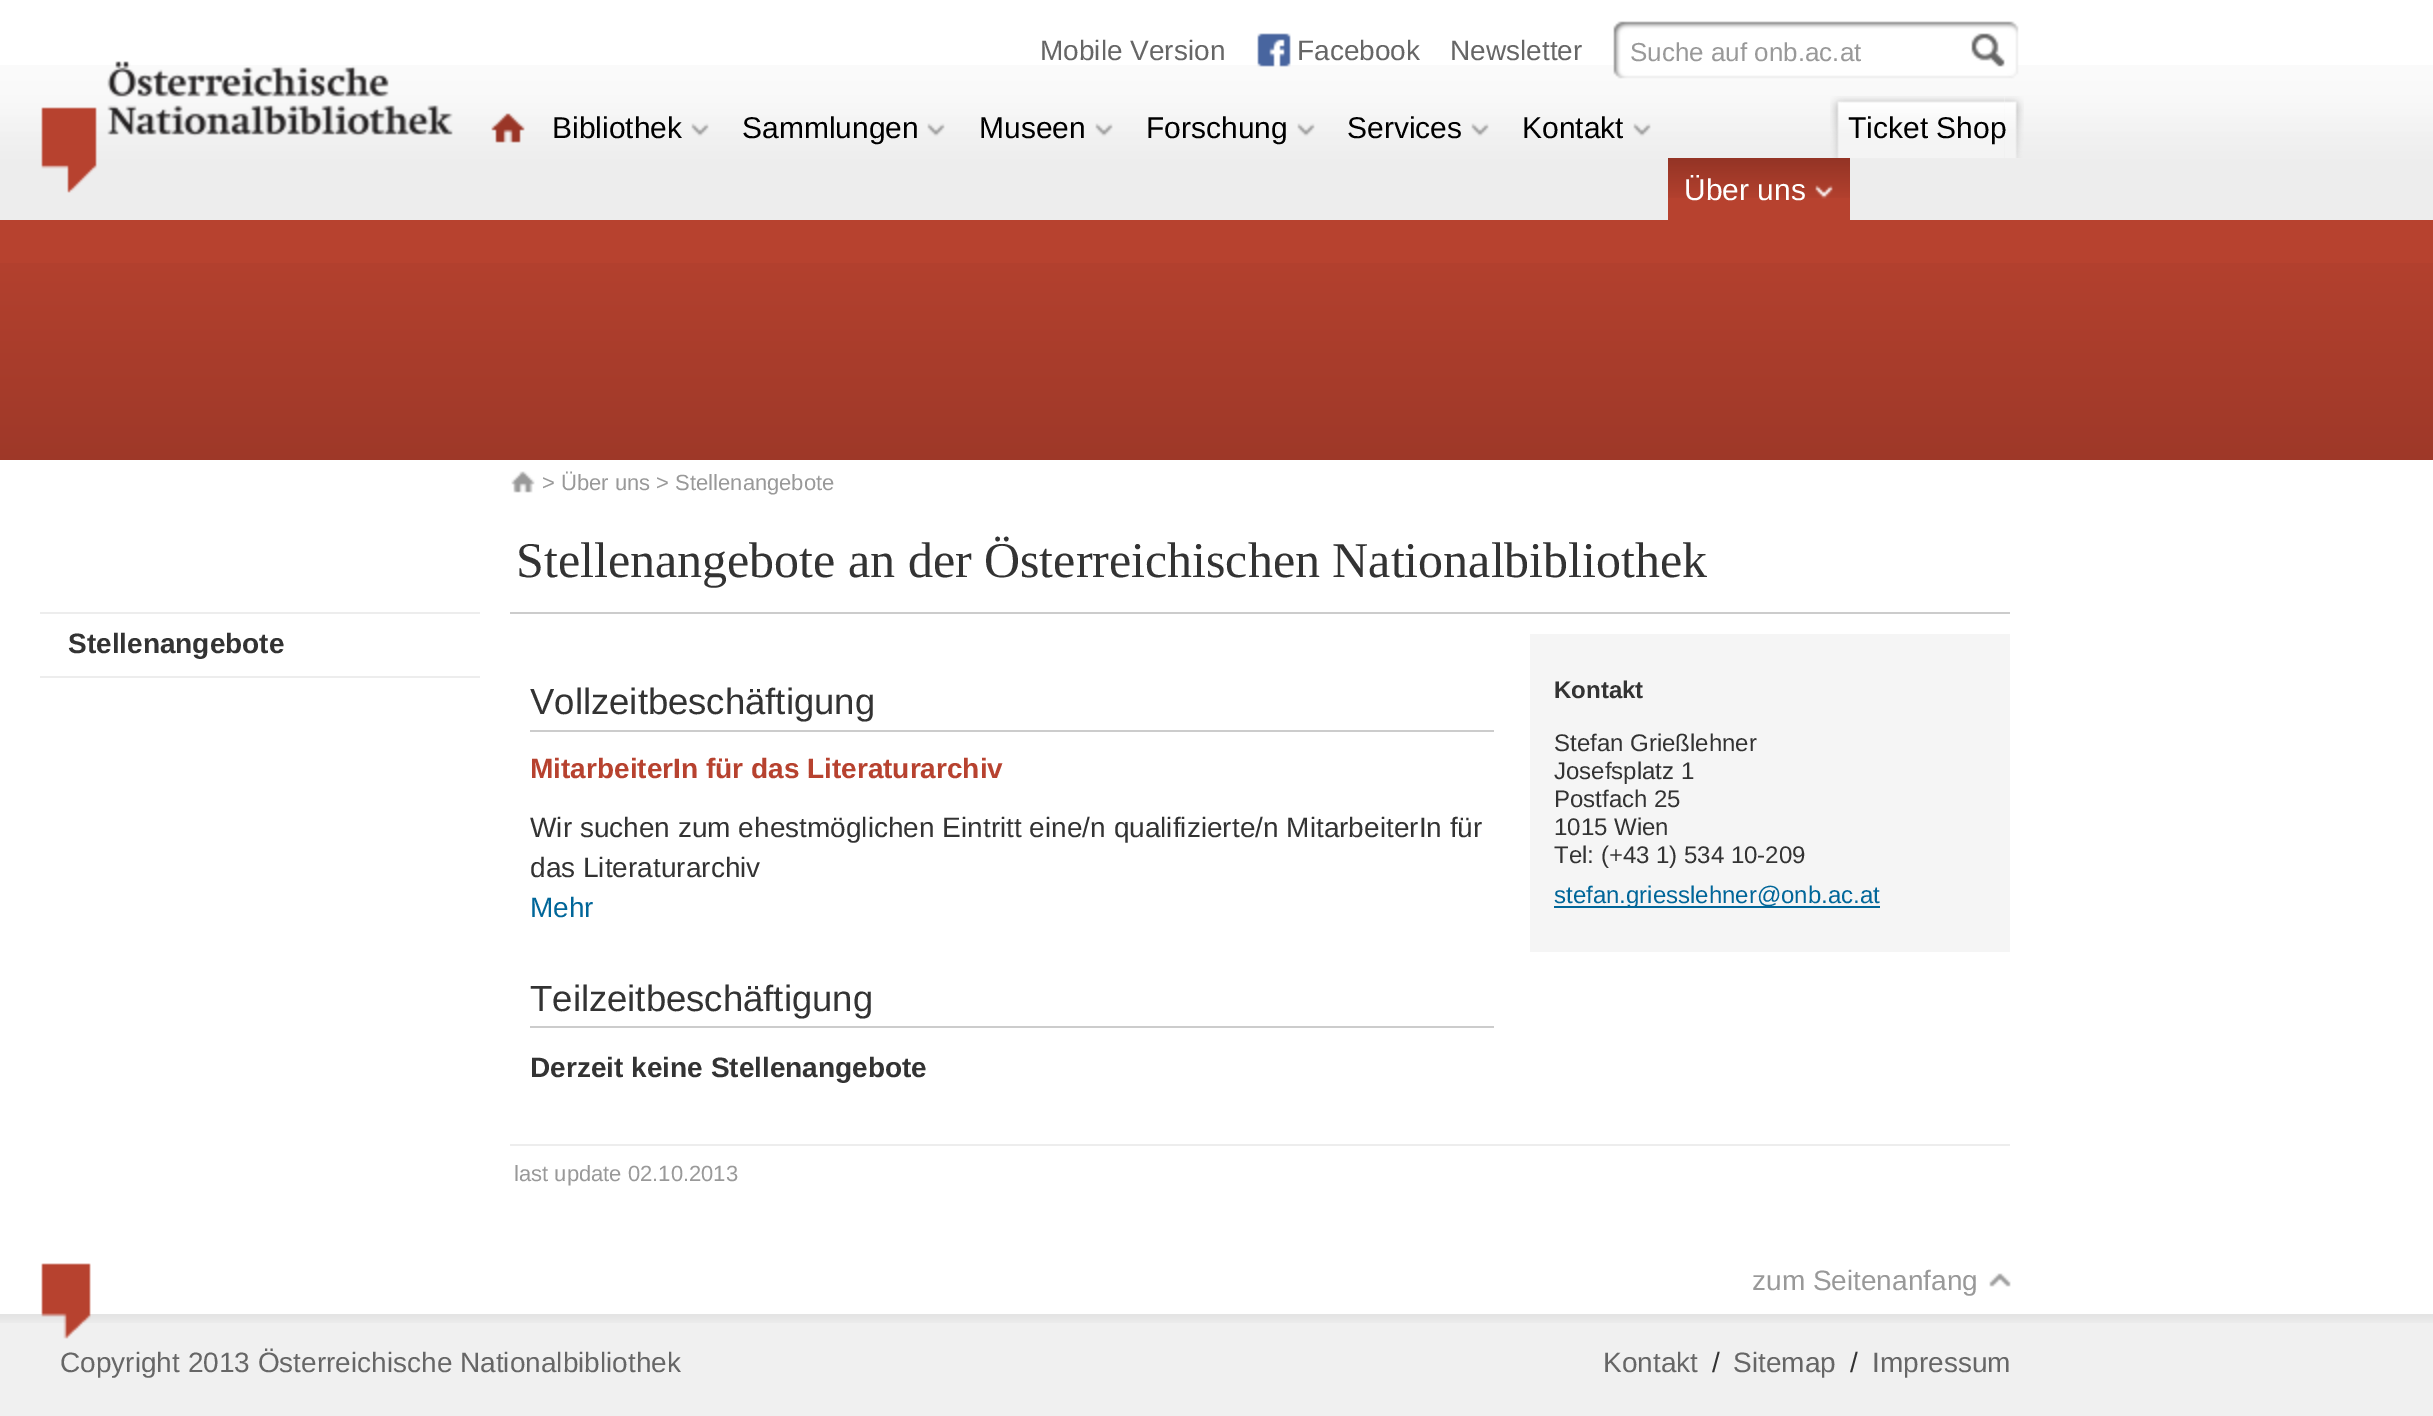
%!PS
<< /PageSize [2433 1416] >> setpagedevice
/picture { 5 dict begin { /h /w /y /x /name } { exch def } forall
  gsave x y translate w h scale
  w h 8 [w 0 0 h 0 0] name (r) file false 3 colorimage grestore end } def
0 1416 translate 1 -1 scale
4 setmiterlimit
1 setgray
0 0 2433 1416 rectfill
(img1.rgb) 0 65 2433 155 picture
/LiberationSans-Regular [28 0 0 -28 0 0] selectfont
0.4 setgray
1040 60 moveto (Mobile Version) show
(img2.rgb) 1257 33 34 34 picture
1297 60 moveto (Facebook) show
1450 60 moveto (Newsletter) show
(img3.rgb) 1613 21 406 58 picture
/LiberationSans-Regular [26 0 0 -26 0 0] selectfont
0.6 setgray
1630 61 moveto (Suche auf onb.ac.at) show
(img4.rgb) 1971 33 34 34 picture
(img5.rgb) 41 61 412 132 picture
(img6.rgb) 491 113 34 30 picture
/LiberationSans-Regular [30 0 0 -30 0 0] selectfont
0 setgray
552 138 moveto (Bibliothek) show
(img7.rgb) 691 123 18 14 picture
742 138 moveto (Sammlungen) show
(img7.rgb) 927 123 18 14 picture
979 138 moveto (Museen) show
(img7.rgb) 1095 123 18 14 picture
1146 138 moveto (Forschung) show
(img7.rgb) 1297 123 18 14 picture
1347 138 moveto (Services) show
(img7.rgb) 1471 123 18 14 picture
1522 138 moveto (Kontakt) show
(img7.rgb) 1633 123 18 14 picture
(img8.rgb) 1830 96 174 62 picture
(img9.rgb) 2004 96 20 62 picture
1848 138 moveto (Ticket Shop) show
0.718 0.259 0.184 setrgbcolor
1668 198 182 22 rectfill
(img10.rgb) 1668 158 182 40 picture
1 setgray
1684 200 moveto (Über uns) show
(img11.rgb) 1815 185 18 14 picture
0.718 0.259 0.184 setrgbcolor
0 220 2433 43 rectfill
(img12.rgb) 0 263 2433 197 picture
(img13.rgb) 511 471 24 22 picture
/LiberationSans-Regular [22 0 0 -22 0 0] selectfont
0.6 setgray
542 490 moveto (> Über uns > Stellenangebote) show
0.929 setgray
40 612 440 2 rectfill
40 676 440 2 rectfill
/LiberationSans-Bold [28 0 0 -28 0 0] selectfont
0.2 setgray
68 653 moveto (Stellenangebote) show
0.8 setgray
510 612 1500 2 rectfill
/LiberationSerif-Regular [50 0 0 -50 0 0] selectfont
0.2 setgray
516 577 moveto (Stellenangebote an der Österreichischen Nationalbibliothek) show
0.8 setgray
530 730 964 2 rectfill
/LiberationSans-Regular [36.5 0 0 -36.5 0 0] selectfont
0.2 setgray
530 714 moveto (Vollzeitbeschäftigung) show
/LiberationSans-Bold [28 0 0 -28 0 0] selectfont
0.718 0.259 0.184 setrgbcolor
530 778 moveto (MitarbeiterIn für das Literaturarchiv) show
/LiberationSans-Regular [28 0 0 -28 0 0] selectfont
0.2 setgray
530 837 moveto (Wir suchen zum ehestmöglichen Eintritt eine/n qualifizierte/n MitarbeiterIn für) show
530 877 moveto (das Literaturarchiv) show
0 0.4 0.6 setrgbcolor
530 917 moveto (Mehr) show
0.8 setgray
530 1026 964 2 rectfill
/LiberationSans-Regular [36.5 0 0 -36.5 0 0] selectfont
0.2 setgray
530 1011 moveto (Teilzeitbeschäftigung) show
/LiberationSans-Bold [28 0 0 -28 0 0] selectfont
530 1077 moveto (Derzeit keine Stellenangebote) show
0.961 setgray
1530 634 480 318 rectfill
/LiberationSans-Bold [24 0 0 -24 0 0] selectfont
0.2 setgray
1554 698 moveto (Kontakt) show
/LiberationSans-Regular [24 0 0 -24 0 0] selectfont
1554 751 moveto (Stefan Grießlehner) show
1554 779 moveto (Josefsplatz 1) show
1554 807 moveto (Postfach 25) show
1554 835 moveto (1015 Wien) show
1554 863 moveto (Tel: \(+43 1\) 534 10-209) show
0 0.4 0.6 setrgbcolor
1554 906 326 2 rectfill
1554 903 moveto (stefan.griesslehner@onb.ac.at) show
0.929 setgray
510 1144 1500 2 rectfill
/LiberationSans-Regular [22 0 0 -22 0 0] selectfont
0.6 setgray
514 1181 moveto (last update 02.10.2013) show
0.941 setgray
0 1323 2433 93 rectfill
(img14.rgb) 0 1314 2433 9 picture
(img15.rgb) 41 1263 50 76 picture
/LiberationSans-Regular [28 0 0 -28 0 0] selectfont
0.6 setgray
1752 1290 moveto (zum Seitenanfang) show
(img16.rgb) 1989 1273 22 14 picture
0.4 setgray
60 1372 moveto (Copyright 2013 Österreichische Nationalbibliothek) show
1603 1372 moveto (Kontakt) show
0.2 setgray
1712 1372 moveto (/) show
0.4 setgray
1733 1372 moveto (Sitemap) show
0.2 setgray
1850 1372 moveto (/) show
0.4 setgray
1872 1372 moveto (Impressum) show
showpage
